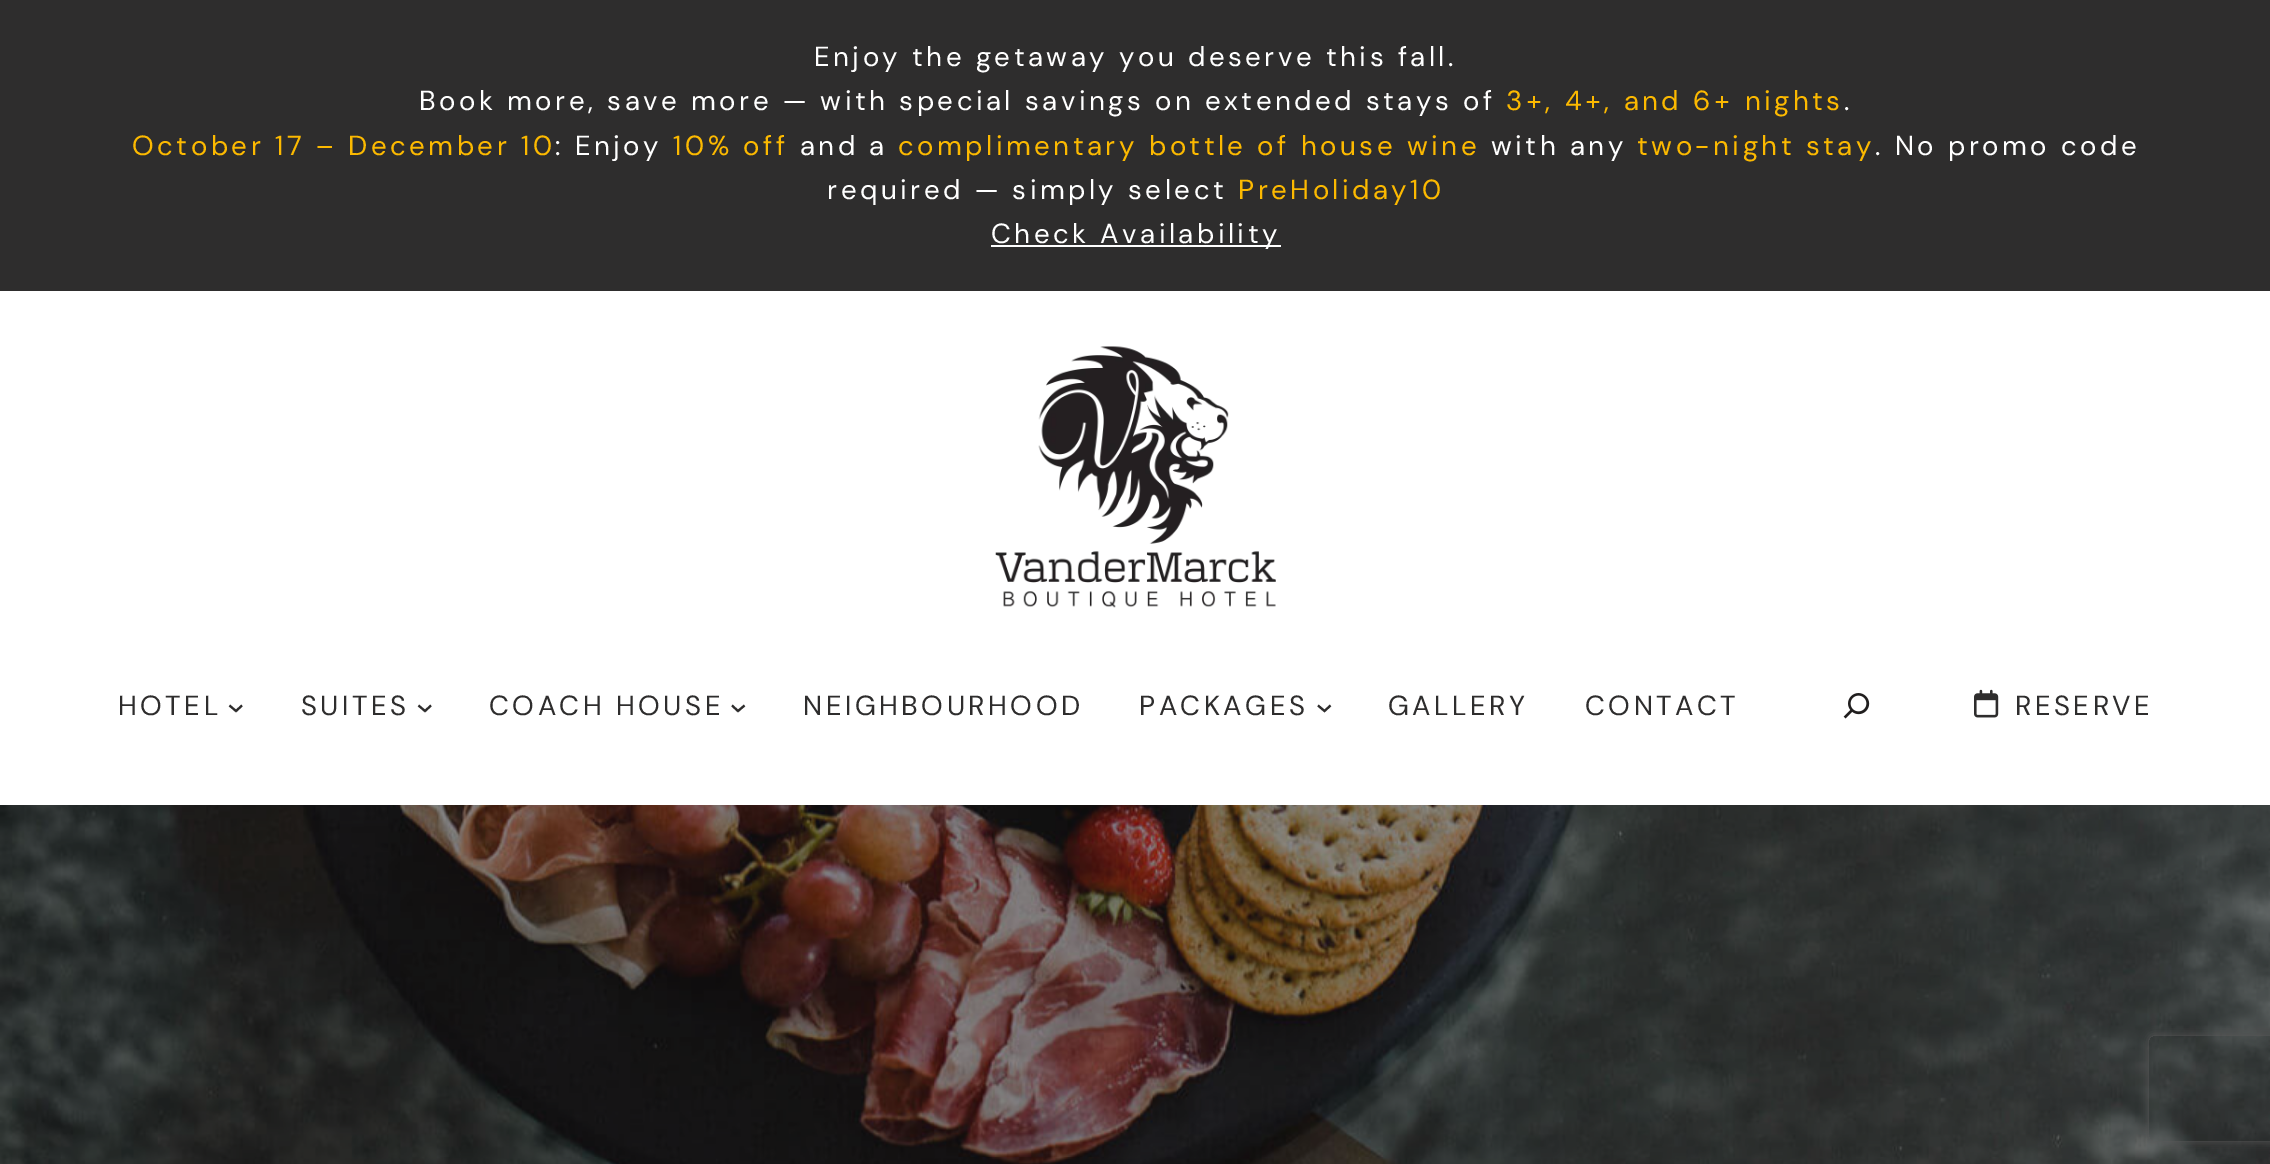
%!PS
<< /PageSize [2270 1164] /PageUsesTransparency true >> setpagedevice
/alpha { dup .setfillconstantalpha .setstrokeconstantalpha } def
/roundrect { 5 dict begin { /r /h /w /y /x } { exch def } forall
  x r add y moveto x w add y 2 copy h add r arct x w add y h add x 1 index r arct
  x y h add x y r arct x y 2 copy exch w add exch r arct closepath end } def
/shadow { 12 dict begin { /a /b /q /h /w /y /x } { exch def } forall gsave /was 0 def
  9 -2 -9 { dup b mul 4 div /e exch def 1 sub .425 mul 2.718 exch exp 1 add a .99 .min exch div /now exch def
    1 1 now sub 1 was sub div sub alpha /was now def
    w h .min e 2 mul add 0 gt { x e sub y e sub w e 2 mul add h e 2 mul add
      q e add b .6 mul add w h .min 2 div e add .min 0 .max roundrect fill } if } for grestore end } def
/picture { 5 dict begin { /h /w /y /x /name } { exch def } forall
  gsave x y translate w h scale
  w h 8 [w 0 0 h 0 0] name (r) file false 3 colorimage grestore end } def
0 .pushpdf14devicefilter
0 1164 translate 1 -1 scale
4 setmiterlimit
1 setgray
0 0 2270 1164 rectfill
0.18 0.176 0.176 setrgbcolor
0 0 2270 291 rectfill
/DMSans-Regular [27.65 0 0 -27.65 0 0] selectfont
1 setgray
814 66 moveto 3.5 0 (Enjoy the getaway you deserve this fall) ashow
1448 66 moveto 3.5 0 (.) ashow
419 110 moveto 3.5 0 (Book more, save more — with special savings on extended stays of) ashow
0.988 0.725 0 setrgbcolor
1506 110 moveto 3.5 0 (3+, 4+, and 6+ nights) ashow
1 setgray
1844 110 moveto 3.5 0 (.) ashow
0.988 0.725 0 setrgbcolor
132 155 moveto 3.5 0 (October 17 – December 10) ashow
1 setgray
555 155 moveto 3.5 0 (: Enjoy) ashow
0.988 0.725 0 setrgbcolor
673 155 moveto 3.5 0 (10% off) ashow
1 setgray
800 155 moveto 3.5 0 (and a) ashow
0.988 0.725 0 setrgbcolor
898 155 moveto 3.5 0 (complimentary bottle of house wine) ashow
1 setgray
1491 155 moveto 3.5 0 (with any) ashow
0.988 0.725 0 setrgbcolor
1637 155 moveto 3.5 0 (two-night stay) ashow
1 setgray
1875 155 moveto 3.5 0 (. No promo code) ashow
827 199 moveto 3.5 0 (required — simply select) ashow
0.988 0.725 0 setrgbcolor
1238 199 moveto 3.5 0 (PreHoliday10) ashow
1 setgray
991 245 290 2 rectfill
991 243 moveto 3.5 0 (Check Availability) ashow
(img1.rgb) 995 346 281 262 picture
0.18 0.176 0.176 setrgbcolor
118 715 moveto 3.5 0 (HOTEL) ashow
2.1 setlinewidth
newpath 229.5 705.5 moveto 236 711 lineto 242 705.5 lineto stroke
301 715 moveto 3.5 0 (SUITES) ashow
newpath 418.5 705.5 moveto 425 711 lineto 431 705.5 lineto stroke
489 715 moveto 3.5 0 (COACH HOUSE) ashow
newpath 732 705.5 moveto 738 711 lineto 744.5 705.5 lineto stroke
803 715 moveto 3.5 0 (NEIGHBOURHOOD) ashow
1139 715 moveto 3.5 0 (PACKAGES) ashow
newpath 1318 705.5 moveto 1324.5 711 lineto 1330.5 705.5 lineto stroke
1388 715 moveto 3.5 0 (GALLERY) ashow
1585 715 moveto 3.5 0 (CONTACT) ashow
(img2.rgb) 1843 693 27 26 picture
(img3.rgb) 1974 689 25 29 picture
2015 715 moveto 3.5 0 (RESERVE) ashow
(img4.rgb) 0 805 2270 359 picture
gsave
newpath 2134 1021 moveto 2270 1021 lineto 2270 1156 lineto 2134 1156 lineto closepath 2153 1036 moveto 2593 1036 lineto 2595 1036 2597 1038 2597 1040 curveto 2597 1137 lineto 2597 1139 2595 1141 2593 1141 curveto 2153 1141 lineto 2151 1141 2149 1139 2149 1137 curveto 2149 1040 lineto 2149 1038 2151 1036 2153 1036 curveto closepath eoclip newpath
0.353 0.349 0.349 setrgbcolor
2149 1036 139 105 4 4.5 1 shadow
grestore
.poppdf14devicefilter showpage
